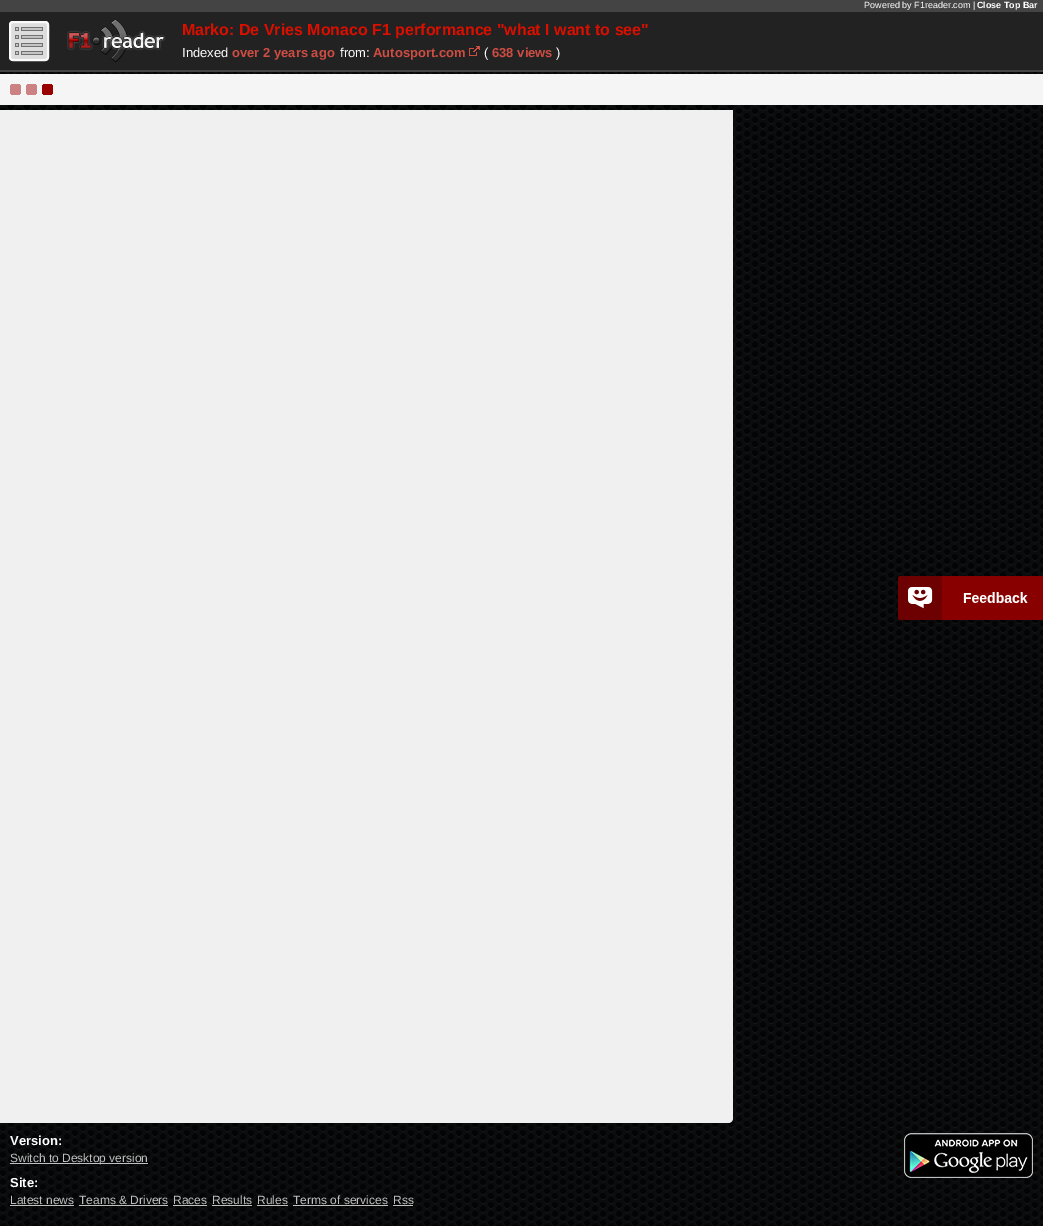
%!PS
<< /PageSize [1043 1226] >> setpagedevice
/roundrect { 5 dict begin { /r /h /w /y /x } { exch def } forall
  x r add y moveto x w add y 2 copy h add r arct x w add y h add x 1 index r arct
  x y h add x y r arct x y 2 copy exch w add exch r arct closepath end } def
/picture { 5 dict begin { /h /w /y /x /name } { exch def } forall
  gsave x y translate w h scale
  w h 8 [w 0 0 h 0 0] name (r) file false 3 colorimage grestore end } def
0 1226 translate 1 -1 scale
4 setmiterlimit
1 setgray
0 0 1043 1226 rectfill
(img1.rgb) 0 72 1043 1154 picture
0.133 setgray
0 12 1043 58 rectfill
0.267 setgray
0 70 1043 2 rectfill
0 0 1043 12 rectfill
/LiberationSans-Regular [9 0 0 -9 0 0] selectfont
1 setgray
864 8 moveto (Powered by F1reader.com |) show
/LiberationSans-Bold [9 0 0 -9 0 0] selectfont
977 8 moveto (Close Top Bar) show
0.867 setgray
9 21 40 40 4 roundrect fill
(img2.rgb) 15 27 28 28 picture
0.98 setgray
2 setlinewidth
10 22 38 38 3 roundrect stroke
(img3.rgb) 67 19 99 44 picture
/LiberationSans-Bold [16 0 0 -16 0 0] selectfont
0.859 0.059 0 setrgbcolor
182 35 moveto (Marko: De Vries Monaco F1 performance "what I want to see") show
/LiberationSans-Regular [13 0 0 -13 0 0] selectfont
1 setgray
182 57 moveto (Indexed) show
/LiberationSans-Bold [13 0 0 -13 0 0] selectfont
0.804 0.302 0.263 setrgbcolor
232 57 moveto (over 2 years ago) show
/LiberationSans-Regular [13 0 0 -13 0 0] selectfont
1 setgray
340 57 moveto (from:) show
/LiberationSans-Bold [13 0 0 -13 0 0] selectfont
0.804 0.302 0.263 setrgbcolor
373 57 moveto (Autosport.com) show
(img4.rgb) 469 46 11 10 picture
/LiberationSans-Regular [13 0 0 -13 0 0] selectfont
1 setgray
484 57 moveto (\() show
/LiberationSans-Bold [13 0 0 -13 0 0] selectfont
0.804 0.302 0.263 setrgbcolor
492 57 moveto (638 views) show
/LiberationSans-Regular [13 0 0 -13 0 0] selectfont
1 setgray
556 57 moveto (\)) show
(img5.rgb) 898 576 145 44 picture
0.961 setgray
0 74 1043 31 rectfill
(img6.rgb) 10 84 43 11 picture
0.941 setgray
newpath 0 110 moveto 733 110 lineto 733 1118 lineto 733 1121 731 1123 728 1123 curveto 0 1123 lineto closepath fill
/LiberationSans-Bold [13 0 0 -13 0 0] selectfont
1 setgray
10 1145 moveto (Version:) show
(img7.rgb) 904 1133 129 45 picture
0.753 setgray
10 1163 138 1 rectfill
/LiberationSans-Regular [12 0 0 -12 0 0] selectfont
10 1162 moveto (Switch to Desktop version) show
/LiberationSans-Bold [13 0 0 -13 0 0] selectfont
1 setgray
10 1187 moveto (Site:) show
/LiberationSans-Regular [12 0 0 -12 0 0] selectfont
0.753 setgray
10 1204 moveto (Latest news) show
10 1205 64 1 rectfill
79 1204 moveto (Teams & Drivers) show
79 1205 89 1 rectfill
173 1204 moveto (Races) show
173 1205 34 1 rectfill
212 1204 moveto (Results) show
212 1205 40 1 rectfill
257 1204 moveto (Rules) show
257 1205 31 1 rectfill
293 1204 moveto (Terms of services) show
293 1205 95 1 rectfill
393 1204 moveto (Rss) show
393 1205 20 1 rectfill
showpage
